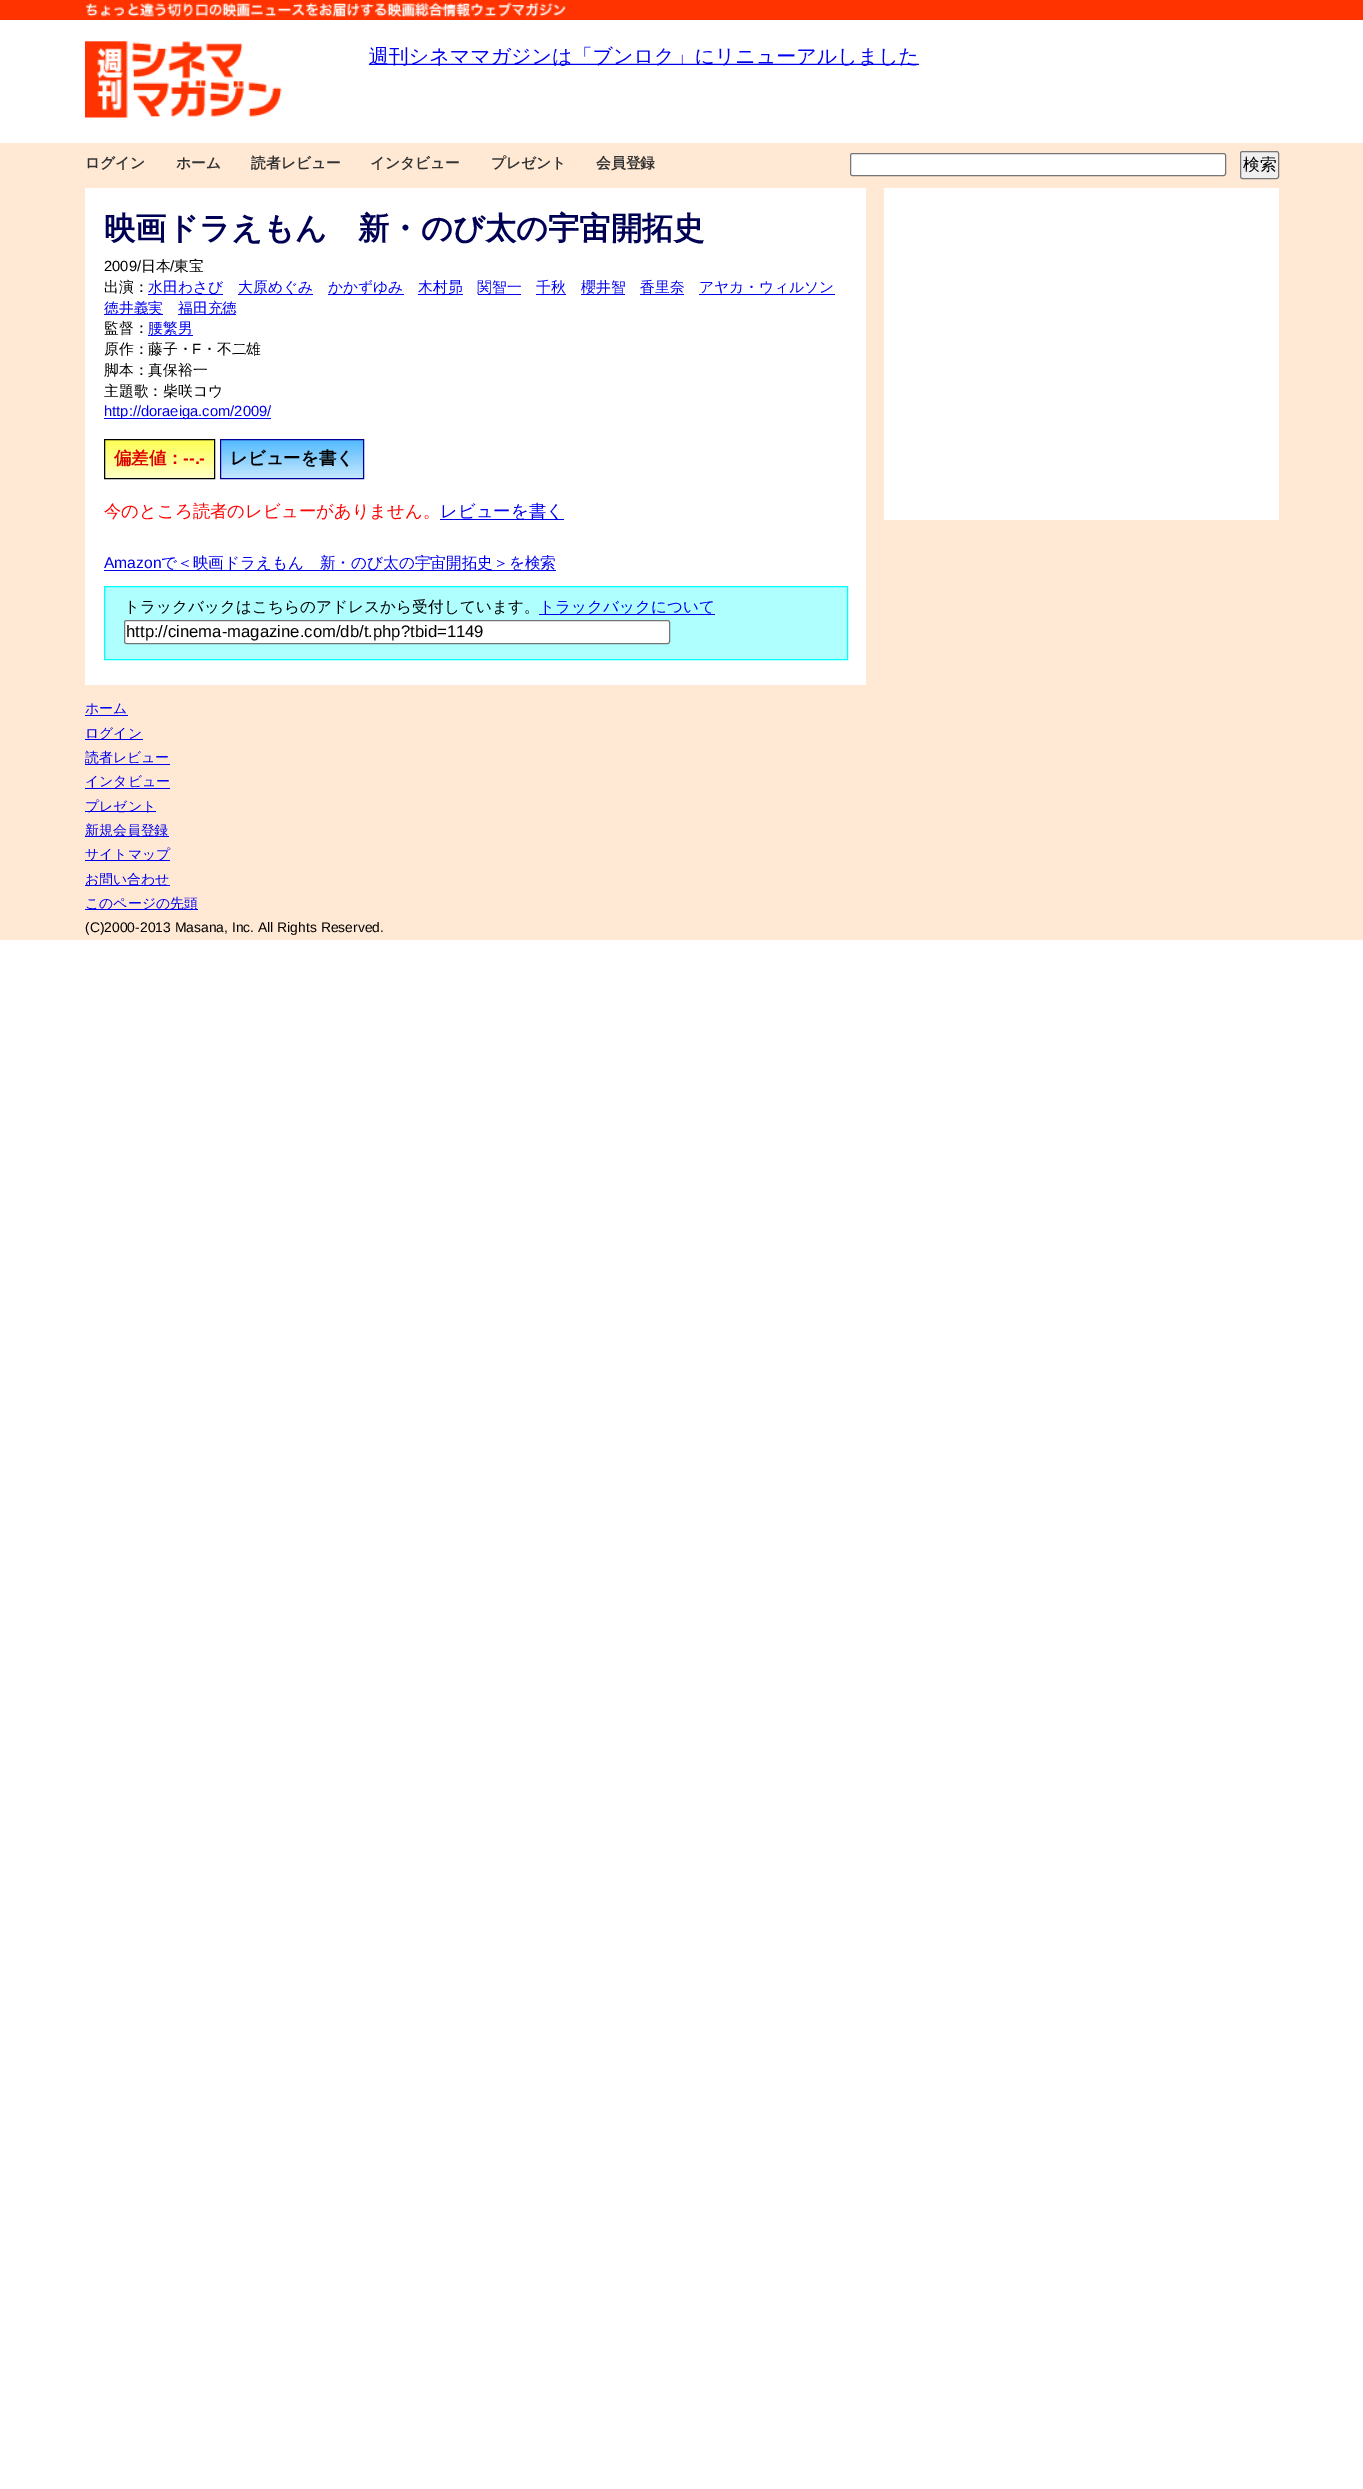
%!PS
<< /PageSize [1363 2489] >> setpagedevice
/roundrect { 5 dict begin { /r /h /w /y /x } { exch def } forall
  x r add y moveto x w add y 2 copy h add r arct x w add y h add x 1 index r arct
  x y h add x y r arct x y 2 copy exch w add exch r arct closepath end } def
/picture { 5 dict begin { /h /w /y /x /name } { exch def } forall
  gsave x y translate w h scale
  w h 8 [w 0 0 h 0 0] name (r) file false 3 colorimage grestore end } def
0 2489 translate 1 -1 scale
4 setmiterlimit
1 setgray
0 0 1363 2489 rectfill
1 0.2 0 setrgbcolor
0 0 1363 20 rectfill
(img1.rgb) 86 2 480 15 picture
(img2.rgb) 85 41 197 77 picture
(img3.rgb) 368 46 552 20 picture
1 0.914 0.831 setrgbcolor
0 143 1363 797 rectfill
/WenQuanYiZenHei-Bold [14.75 0 0 -14.75 0 0] selectfont
0.2 setgray
85 168 moveto (ログイン) show
176 168 moveto (ホーム) show
251 168 moveto (読者レビュー) show
370 168 moveto (インタビュー) show
491 168 moveto (プレゼント) show
596 168 moveto (会員登録) show
1 setgray
850.5 153.5 375 22 2 roundrect gsave fill grestore
0.463 setgray
stroke
0.937 setgray
1240.5 151.5 38 27 2 roundrect gsave fill grestore
0.463 setgray
stroke
/WenQuanYiZenHei-Medium [16.7 0 0 -16.7 0 0] selectfont
0 setgray
1243 170 moveto (検索) show
1 setgray
85 188 781 497 rectfill
/WenQuanYiZenHei-Bold [31.3 0 0 -31.3 0 0] selectfont
0 0 0.333 setrgbcolor
104 239 moveto (映画ドラえもん　新・のび太の宇宙開拓史) show
/LiberationSans-Regular [14.75 0 0 -14.75 0 0] selectfont
0 setgray
104 271 moveto (2009/) show
/WenQuanYiZenHei-Medium [14.75 0 0 -14.75 0 0] selectfont
141 271 moveto (日本) show
/LiberationSans-Regular [14.75 0 0 -14.75 0 0] selectfont
170 271 moveto (/) show
/WenQuanYiZenHei-Medium [14.75 0 0 -14.75 0 0] selectfont
174 271 moveto (東宝) show
104 292 moveto (出演：) show
0 0 0.933 setrgbcolor
148 294 75 1 rectfill
148 292 moveto (水田わさび) show
238 294 75 1 rectfill
238 292 moveto (大原めぐみ) show
328 294 76 1 rectfill
328 292 moveto (かかずゆみ) show
418 292 moveto (木村昴) show
418 294 45 1 rectfill
477 292 moveto (関智一) show
478 294 43 1 rectfill
536 292 moveto (千秋) show
536 294 30 1 rectfill
581 292 moveto (櫻井智) show
581 294 44 1 rectfill
640 292 moveto (香里奈) show
640 294 44 1 rectfill
699 292 moveto (アヤカ・ウィルソン) show
699 294 136 1 rectfill
104 314 59 1 rectfill
104 313 moveto (徳井義実) show
178 314 58 1 rectfill
178 313 moveto (福田充徳) show
0 setgray
104 333 moveto (監督：) show
0 0 0.933 setrgbcolor
148 335 45 1 rectfill
148 333 moveto (腰繁男) show
0 setgray
104 354 moveto (原作：藤子・) show
/LiberationSans-Regular [14.75 0 0 -14.75 0 0] selectfont
192 354 moveto (F) show
/WenQuanYiZenHei-Medium [14.75 0 0 -14.75 0 0] selectfont
202 354 moveto (・不二雄) show
104 375 moveto (脚本：真保裕一) show
104 396 moveto (主題歌：柴咲コウ) show
0 0 0.933 setrgbcolor
104 418 167 1 rectfill
/LiberationSans-Regular [14.75 0 0 -14.75 0 0] selectfont
104 416 moveto (http://doraeiga.com/2009/) show
(img4.rgb) 105 440 109 38 picture
(img5.rgb) 221 440 142 38 picture
0 setgray
104.5 439.5 110 39 rectstroke
/WenQuanYiZenHei-Bold [17.4 0 0 -17.4 0 0] selectfont
0.867 0 0 setrgbcolor
114 464 moveto (偏差値：) show
/LiberationSans-Bold [17.4 0 0 -17.4 0 0] selectfont
183 464 moveto (--.-) show
0 0 0.6 setrgbcolor
220.5 439.5 143 39 rectstroke
/WenQuanYiZenHei-Bold [17.4 0 0 -17.4 0 0] selectfont
0 setgray
230 464 moveto (レビューを書く) show
/WenQuanYiZenHei-Medium [17.4 0 0 -17.4 0 0] selectfont
1 0 0 setrgbcolor
104 517 moveto (今のところ読者のレビューがありません。) show
0 0 0.933 setrgbcolor
440 519 124 1 rectfill
440 517 moveto (レビューを書く) show
/LiberationSans-Regular [15.65 0 0 -15.65 0 0] selectfont
104 568 moveto (Amazon) show
104 570 452 1 rectfill
/WenQuanYiZenHei-Medium [15.65 0 0 -15.65 0 0] selectfont
161 568 moveto (で＜映画ドラえもん　新・のび太の宇宙開拓史＞を検索) show
0.686 1 1 setrgbcolor
newpath 104.5 586.5 moveto 847.5 586.5 lineto 847.5 659.5 lineto 104.5 659.5 lineto closepath gsave fill grestore
0 1 1 setrgbcolor
stroke
0 setgray
124 612 moveto (トラックバックはこちらのアドレスから受付しています。) show
0 0 0.933 setrgbcolor
539 614 176 1 rectfill
539 612 moveto (トラックバックについて) show
1 setgray
124.5 620.5 545 23 2 roundrect gsave fill grestore
0.463 setgray
stroke
/LiberationSans-Regular [16.7 0 0 -16.7 0 0] selectfont
0 setgray
126 637 moveto (http://cinema-magazine.com/db/t.php?tbid=1149) show
1 setgray
884 188 395 332 rectfill
/WenQuanYiZenHei-Medium [13.9 0 0 -13.9 0 0] selectfont
0 0 0.933 setrgbcolor
85 713 moveto (ホーム) show
85 715 43 1 rectfill
85 739 58 1 rectfill
85 738 moveto (ログイン) show
85 762 moveto (読者レビュー) show
85 764 85 1 rectfill
85 786 moveto (インタビュー) show
85 788 85 1 rectfill
85 811 71 1 rectfill
85 811 moveto (プレゼント) show
85 836 84 1 rectfill
85 835 moveto (新規会員登録) show
85 860 85 1 rectfill
85 859 moveto (サイトマップ) show
85 885 85 1 rectfill
85 884 moveto (お問い合わせ) show
85 909 113 1 rectfill
85 908 moveto (このページの先頭) show
/LiberationSans-Regular [13.9 0 0 -13.9 0 0] selectfont
0 setgray
85 932 moveto (\(C\)2000-2013 Masana, Inc. All Rights Reserved.) show
showpage
